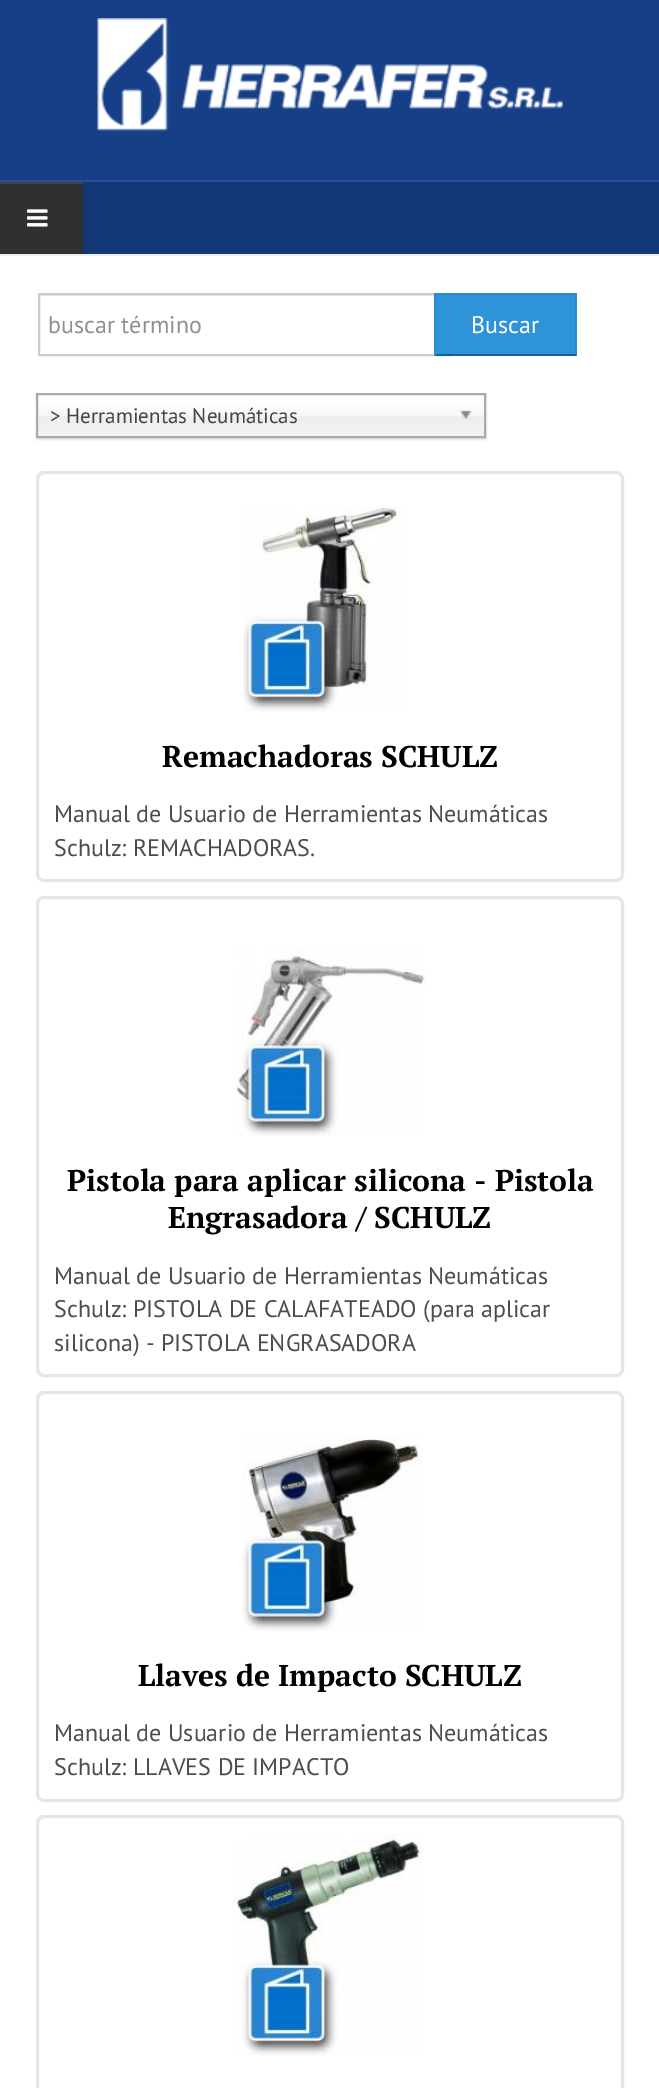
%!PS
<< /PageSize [659 2088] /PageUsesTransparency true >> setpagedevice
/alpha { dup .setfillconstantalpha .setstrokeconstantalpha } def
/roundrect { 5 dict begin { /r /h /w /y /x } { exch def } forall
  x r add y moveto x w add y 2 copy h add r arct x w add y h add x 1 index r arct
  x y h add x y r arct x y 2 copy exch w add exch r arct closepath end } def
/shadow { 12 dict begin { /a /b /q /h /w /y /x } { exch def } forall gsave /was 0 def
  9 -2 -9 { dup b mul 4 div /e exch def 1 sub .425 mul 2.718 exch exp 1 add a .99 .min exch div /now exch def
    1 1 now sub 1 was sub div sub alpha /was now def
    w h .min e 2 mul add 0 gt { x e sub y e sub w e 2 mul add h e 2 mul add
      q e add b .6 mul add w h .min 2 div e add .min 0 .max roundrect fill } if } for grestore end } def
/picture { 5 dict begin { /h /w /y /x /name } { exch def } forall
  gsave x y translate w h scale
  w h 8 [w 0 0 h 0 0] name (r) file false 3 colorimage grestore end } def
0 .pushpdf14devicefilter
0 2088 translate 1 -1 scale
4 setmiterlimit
1 setgray
0 0 659 2088 rectfill
0.086 0.247 0.529 setrgbcolor
0 0 659 180 rectfill
0.153 0.31 0.584 setrgbcolor
0 180 659 2 rectfill
(img1.rgb) 97 18 466 113 picture
0.075 0.22 0.467 setrgbcolor
83 182 576 72 rectfill
0.933 setgray
0 254 659 2 rectfill
0.188 setgray
0 184 83 70 rectfill
0.271 setgray
0 182 83 2 rectfill
(img2.rgb) 27 209 21 18 picture
0.925 setgray
39 295 395 1 rectfill
0.8 setgray
2 setlinewidth
39 294 412 61 rectstroke
/PTSans-Regular [24 0 0 -24 0 0] selectfont
0.565 setgray
48 333 moveto (buscar término) show
0.18 0.576 0.843 setrgbcolor
436 295 139 59 rectfill
0.145 0.549 0.82 setrgbcolor
434 293 142 2 rectfill
575 293 2 63 rectfill
0.098 0.376 0.565 setrgbcolor
434 354 142 2 rectfill
0.145 0.549 0.82 setrgbcolor
434 293 2 63 rectfill
1 setgray
471 333 moveto (Buscar) show
0 setgray
36 395 450 45 0 1 0.1 shadow
gsave newpath 38 395 moveto 484 395 lineto 484 436 lineto 38 436 lineto closepath clip newpath
<< /ShadingType 2 /ColorSpace /DeviceRGB /Coords [261 395 261 437] /Extend [true true] /Function << /FunctionType 3 /Domain [0 1] /Functions [<< /FunctionType 2 /Domain [0 1] /C0 [1 1 1] /C1 [1 1 1] /N 1 >> << /FunctionType 2 /Domain [0 1] /C0 [1 1 1] /C1 [0.965 0.965 0.965] /N 1 >> << /FunctionType 2 /Domain [0 1] /C0 [0.965 0.965 0.965] /C1 [0.933 0.933 0.933] /N 1 >> << /FunctionType 2 /Domain [0 1] /C0 [0.933 0.933 0.933] /C1 [0.957 0.957 0.957] /N 1 >>] /Bounds [0.2 0.5 0.52] /Encode [0 1 0 1 0 1 0 1] >> >> shfill grestore
0.667 setgray
37 394 448 43 rectstroke
/PTSans-Regular [21 0 0 -21 0 0] selectfont
0.267 setgray
50 423 moveto (> Herramientas Neumáticas) show
(img3.rgb) 460 410 12 9 picture
0.902 setgray
3 setlinewidth
37.5 472.5 585 408 6.5 roundrect stroke
(img4.rgb) 243 507 161 205 picture
/PTSerif-Bold [30 0 0 -30 0 0] selectfont
0 setgray
162 767 moveto (Remachadoras SCHULZ) show
/PTSans-Regular [24 0 0 -24 0 0] selectfont
0.302 setgray
54 822 moveto (Manual de Usuario de Herramientas Neumáticas) show
54 856 moveto (Schulz: REMACHADORAS.) show
0.902 setgray
37.5 897.5 585 478 6.5 roundrect stroke
(img5.rgb) 234 949 191 187 picture
/PTSerif-Bold [30 0 0 -30 0 0] selectfont
0 setgray
67 1191 moveto (Pistola para aplicar silicona - Pistola) show
168 1228 moveto (Engrasadora / SCHULZ) show
/PTSans-Regular [24 0 0 -24 0 0] selectfont
0.302 setgray
54 1284 moveto (Manual de Usuario de Herramientas Neumáticas) show
54 1317 moveto (Schulz: PISTOLA DE CALAFATEADO \(para aplicar) show
54 1351 moveto (silicona\) - PISTOLA ENGRASADORA) show
0.902 setgray
37.5 1392.5 585 408 6.5 roundrect stroke
(img6.rgb) 242 1435 180 196 picture
/PTSerif-Bold [30 0 0 -30 0 0] selectfont
0 setgray
138 1686 moveto (Llaves de Impacto SCHULZ) show
/PTSans-Regular [24 0 0 -24 0 0] selectfont
0.302 setgray
54 1741 moveto (Manual de Usuario de Herramientas Neumáticas) show
54 1775 moveto (Schulz: LLAVES DE IMPACTO) show
0.902 setgray
37.5 1816.5 585 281 6.5 roundrect stroke
(img7.rgb) 232 1833 190 223 picture
.poppdf14devicefilter showpage
